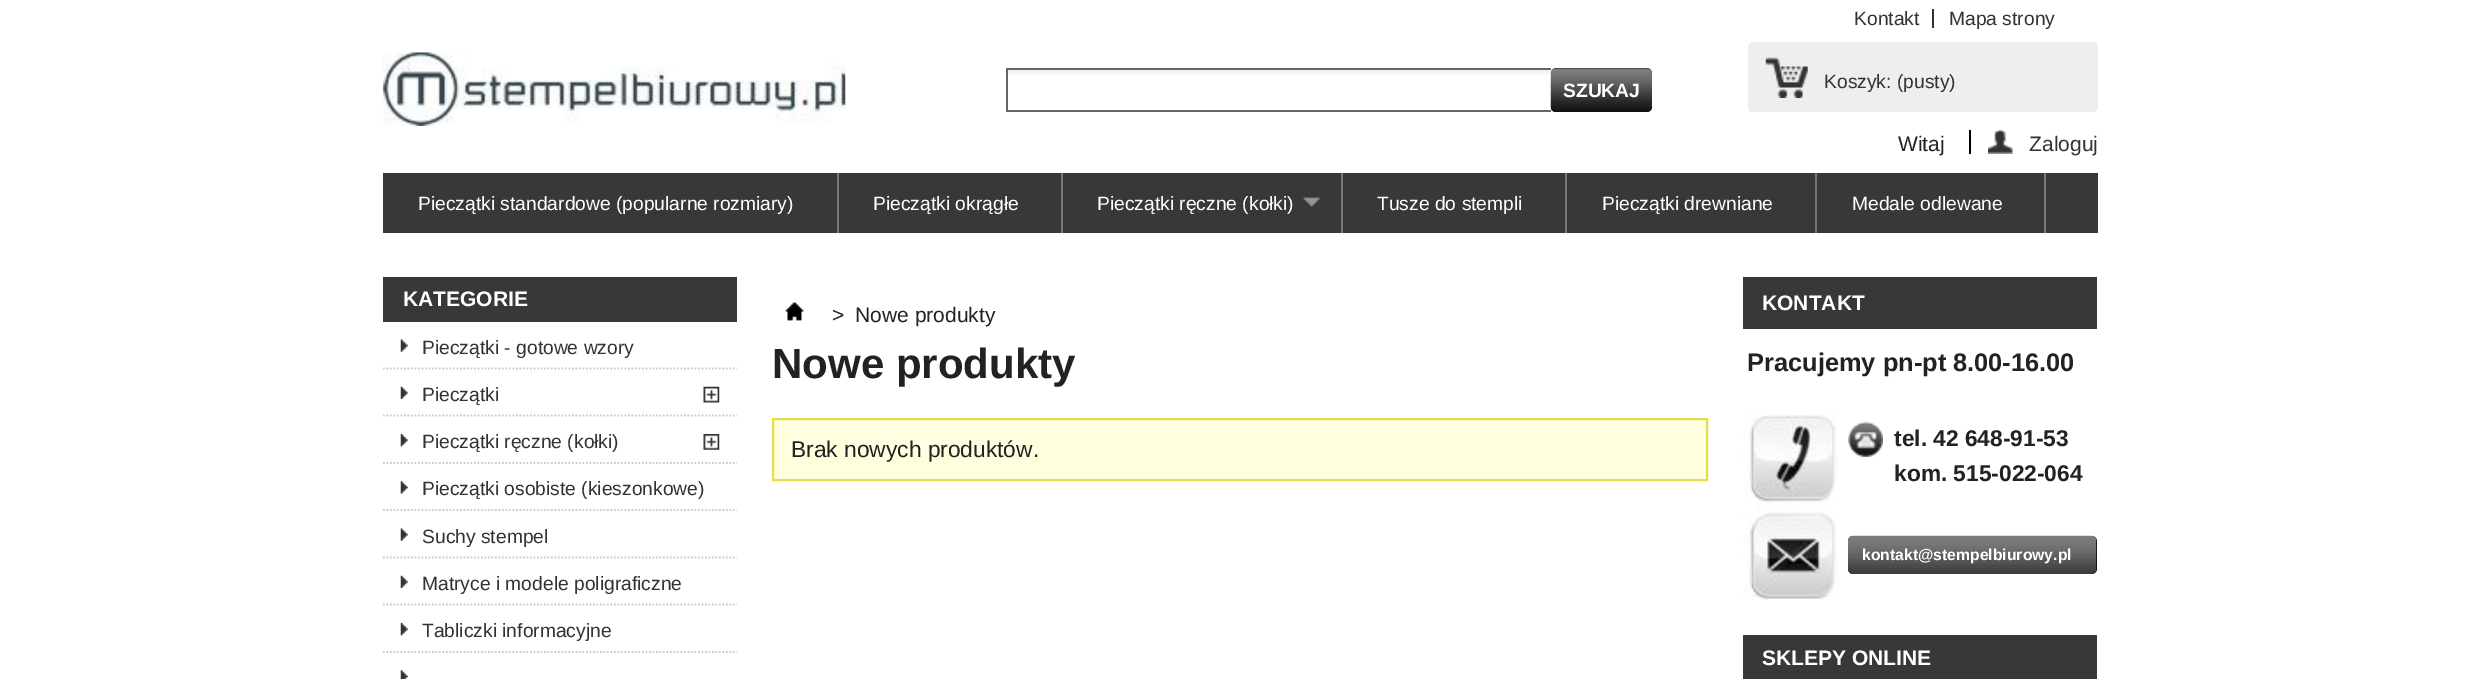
%!PS
<< /PageSize [2481 679] >> setpagedevice
/roundrect { 5 dict begin { /r /h /w /y /x } { exch def } forall
  x r add y moveto x w add y 2 copy h add r arct x w add y h add x 1 index r arct
  x y h add x y r arct x y 2 copy exch w add exch r arct closepath end } def
/picture { 5 dict begin { /h /w /y /x /name } { exch def } forall
  gsave x y translate w h scale
  w h 8 [w 0 0 h 0 0] name (r) file false 3 colorimage grestore end } def
0 679 translate 1 -1 scale
4 setmiterlimit
1 setgray
0 0 2481 679 rectfill
/LiberationSans-Regular [19.25 0 0 -19.25 0 0] selectfont
0.2 setgray
1854 25 moveto (Kontakt) show
1932 9 2 19 rectfill
1949 25 moveto (Mapa strony) show
(img1.rgb) 1008 70 543 5 picture
0.4 setgray
1006 68 545 2 rectfill
1006 110 545 2 rectfill
1006 68 2 44 rectfill
0.063 setgray
1551 68 101 44 5 roundrect fill
(img2.rgb) 1550 68 102 44 picture
/LiberationSans-Bold [19.25 0 0 -19.25 0 0] selectfont
1 setgray
1563 97 moveto (SZUKAJ) show
0.933 setgray
1748 42 350 70 5 roundrect fill
(img3.rgb) 1765 57 43 41 picture
/LiberationSans-Regular [19.25 0 0 -19.25 0 0] selectfont
0.2 setgray
1824 88 moveto (Koszyk: \(pusty\)) show
/LiberationSans-Regular [21 0 0 -21 0 0] selectfont
0.133 setgray
1898 151 moveto (Witaj) show
(img4.rgb) 1988 129 25 25 picture
0 setgray
1969 130 2 24 rectfill
0.2 setgray
2029 151 moveto (Zaloguj) show
0.22 setgray
383 173 1715 60 rectfill
0.467 setgray
837 173 2 60 rectfill
/LiberationSans-Regular [19.25 0 0 -19.25 0 0] selectfont
1 setgray
418 210 moveto (Pieczątki standardowe \(popularne rozmiary\)) show
0.467 setgray
1061 173 2 60 rectfill
1 setgray
873 210 moveto (Pieczątki okrągłe) show
0.467 setgray
1341 173 2 60 rectfill
1 setgray
1097 210 moveto (Pieczątki ręczne \(kołki\)) show
(img5.rgb) 1303 197 17 10 picture
0.467 setgray
1565 173 2 60 rectfill
1 setgray
1377 210 moveto (Tusze do stempli) show
0.467 setgray
1815 173 2 60 rectfill
1 setgray
1602 210 moveto (Pieczątki drewniane) show
0.467 setgray
2044 173 2 60 rectfill
1 setgray
1852 210 moveto (Medale odlewane) show
(img6.rgb) 383 52 463 74 picture
0.22 setgray
383 277 354 45 rectfill
/LiberationSans-Bold [21 0 0 -21 0 0] selectfont
1 setgray
403 306 moveto (KATEGORIE) show
0.8 setgray
1.8 setlinewidth
[1.75 1.75] 0 setdash
newpath 383 368.5 moveto 737 368.5 lineto stroke
(img7.rgb) 400 339 8 13 picture
/LiberationSans-Regular [19.25 0 0 -19.25 0 0] selectfont
0.2 setgray
422 354 moveto (Pieczątki - gotowe wzory) show
0.8 setgray
newpath 383 415.5 moveto 737 415.5 lineto stroke
(img8.rgb) 400 386 8 13 picture
0.2 setgray
422 401 moveto (Pieczątki) show
(img9.rgb) 703 386 17 17 picture
0.8 setgray
newpath 383 463 moveto 737 463 lineto stroke
(img10.rgb) 400 434 8 13 picture
0.2 setgray
422 448 moveto (Pieczątki ręczne \(kołki\)) show
(img11.rgb) 703 434 17 16 picture
0.8 setgray
newpath 383 510 moveto 737 510 lineto stroke
(img12.rgb) 400 481 8 13 picture
0.2 setgray
422 495 moveto (Pieczątki osobiste \(kieszonkowe\)) show
0.8 setgray
newpath 383 557.5 moveto 737 557.5 lineto stroke
(img7.rgb) 400 528 8 13 picture
0.2 setgray
422 543 moveto (Suchy stempel) show
0.8 setgray
newpath 383 604.5 moveto 737 604.5 lineto stroke
(img8.rgb) 400 575 8 13 picture
0.2 setgray
422 590 moveto (Matryce i modele poligraficzne) show
0.8 setgray
newpath 383 652 moveto 737 652 lineto stroke
(img10.rgb) 400 623 8 13 picture
0.2 setgray
422 637 moveto (Tabliczki informacyjne) show
(img13.rgb) 400 670 8 9 picture
(img14.rgb) 785 302 19 19 picture
/LiberationSans-Regular [21 0 0 -21 0 0] selectfont
0.133 setgray
832 322 moveto (>) show
855 322 moveto (Nowe produkty) show
/LiberationSans-Bold [42 0 0 -42 0 0] selectfont
772 378 moveto (Nowe produkty) show
1 1 0.878 setrgbcolor
newpath 773 419 moveto 1707 419 lineto 1707 480 lineto 773 480 lineto closepath gsave fill grestore
0.902 0.859 0.333 setrgbcolor
2 setlinewidth
[] 0 setdash
stroke
/LiberationSans-Regular [22.75 0 0 -22.75 0 0] selectfont
0.133 setgray
791 457 moveto (Brak nowych produktów.) show
0.22 setgray
1743 277 354 52 rectfill
/LiberationSans-Bold [21 0 0 -21 0 0] selectfont
1 setgray
1762 310 moveto (KONTAKT) show
(img15.rgb) 1743 415 96 185 picture
/LiberationSans-Bold [25.4 0 0 -25.4 0 0] selectfont
0.133 setgray
1747 371 moveto (Pracujemy pn-pt 8.00-16.00) show
(img16.rgb) 1848 421 35 36 picture
/LiberationSans-Bold [22.75 0 0 -22.75 0 0] selectfont
1894 446 moveto (tel. 42 648-91-53) show
1894 481 moveto (kom. 515-022-064) show
0 setgray
1848 536 249 38 5 roundrect fill
(img17.rgb) 1848 535 249 39 picture
/LiberationSans-Bold [15.75 0 0 -15.75 0 0] selectfont
1 setgray
1862 560 moveto (kontakt@stempelbiurowy.pl) show
0.22 setgray
1743 635 354 44 rectfill
/LiberationSans-Bold [21 0 0 -21 0 0] selectfont
1 setgray
1762 665 moveto (SKLEPY ONLINE) show
showpage
